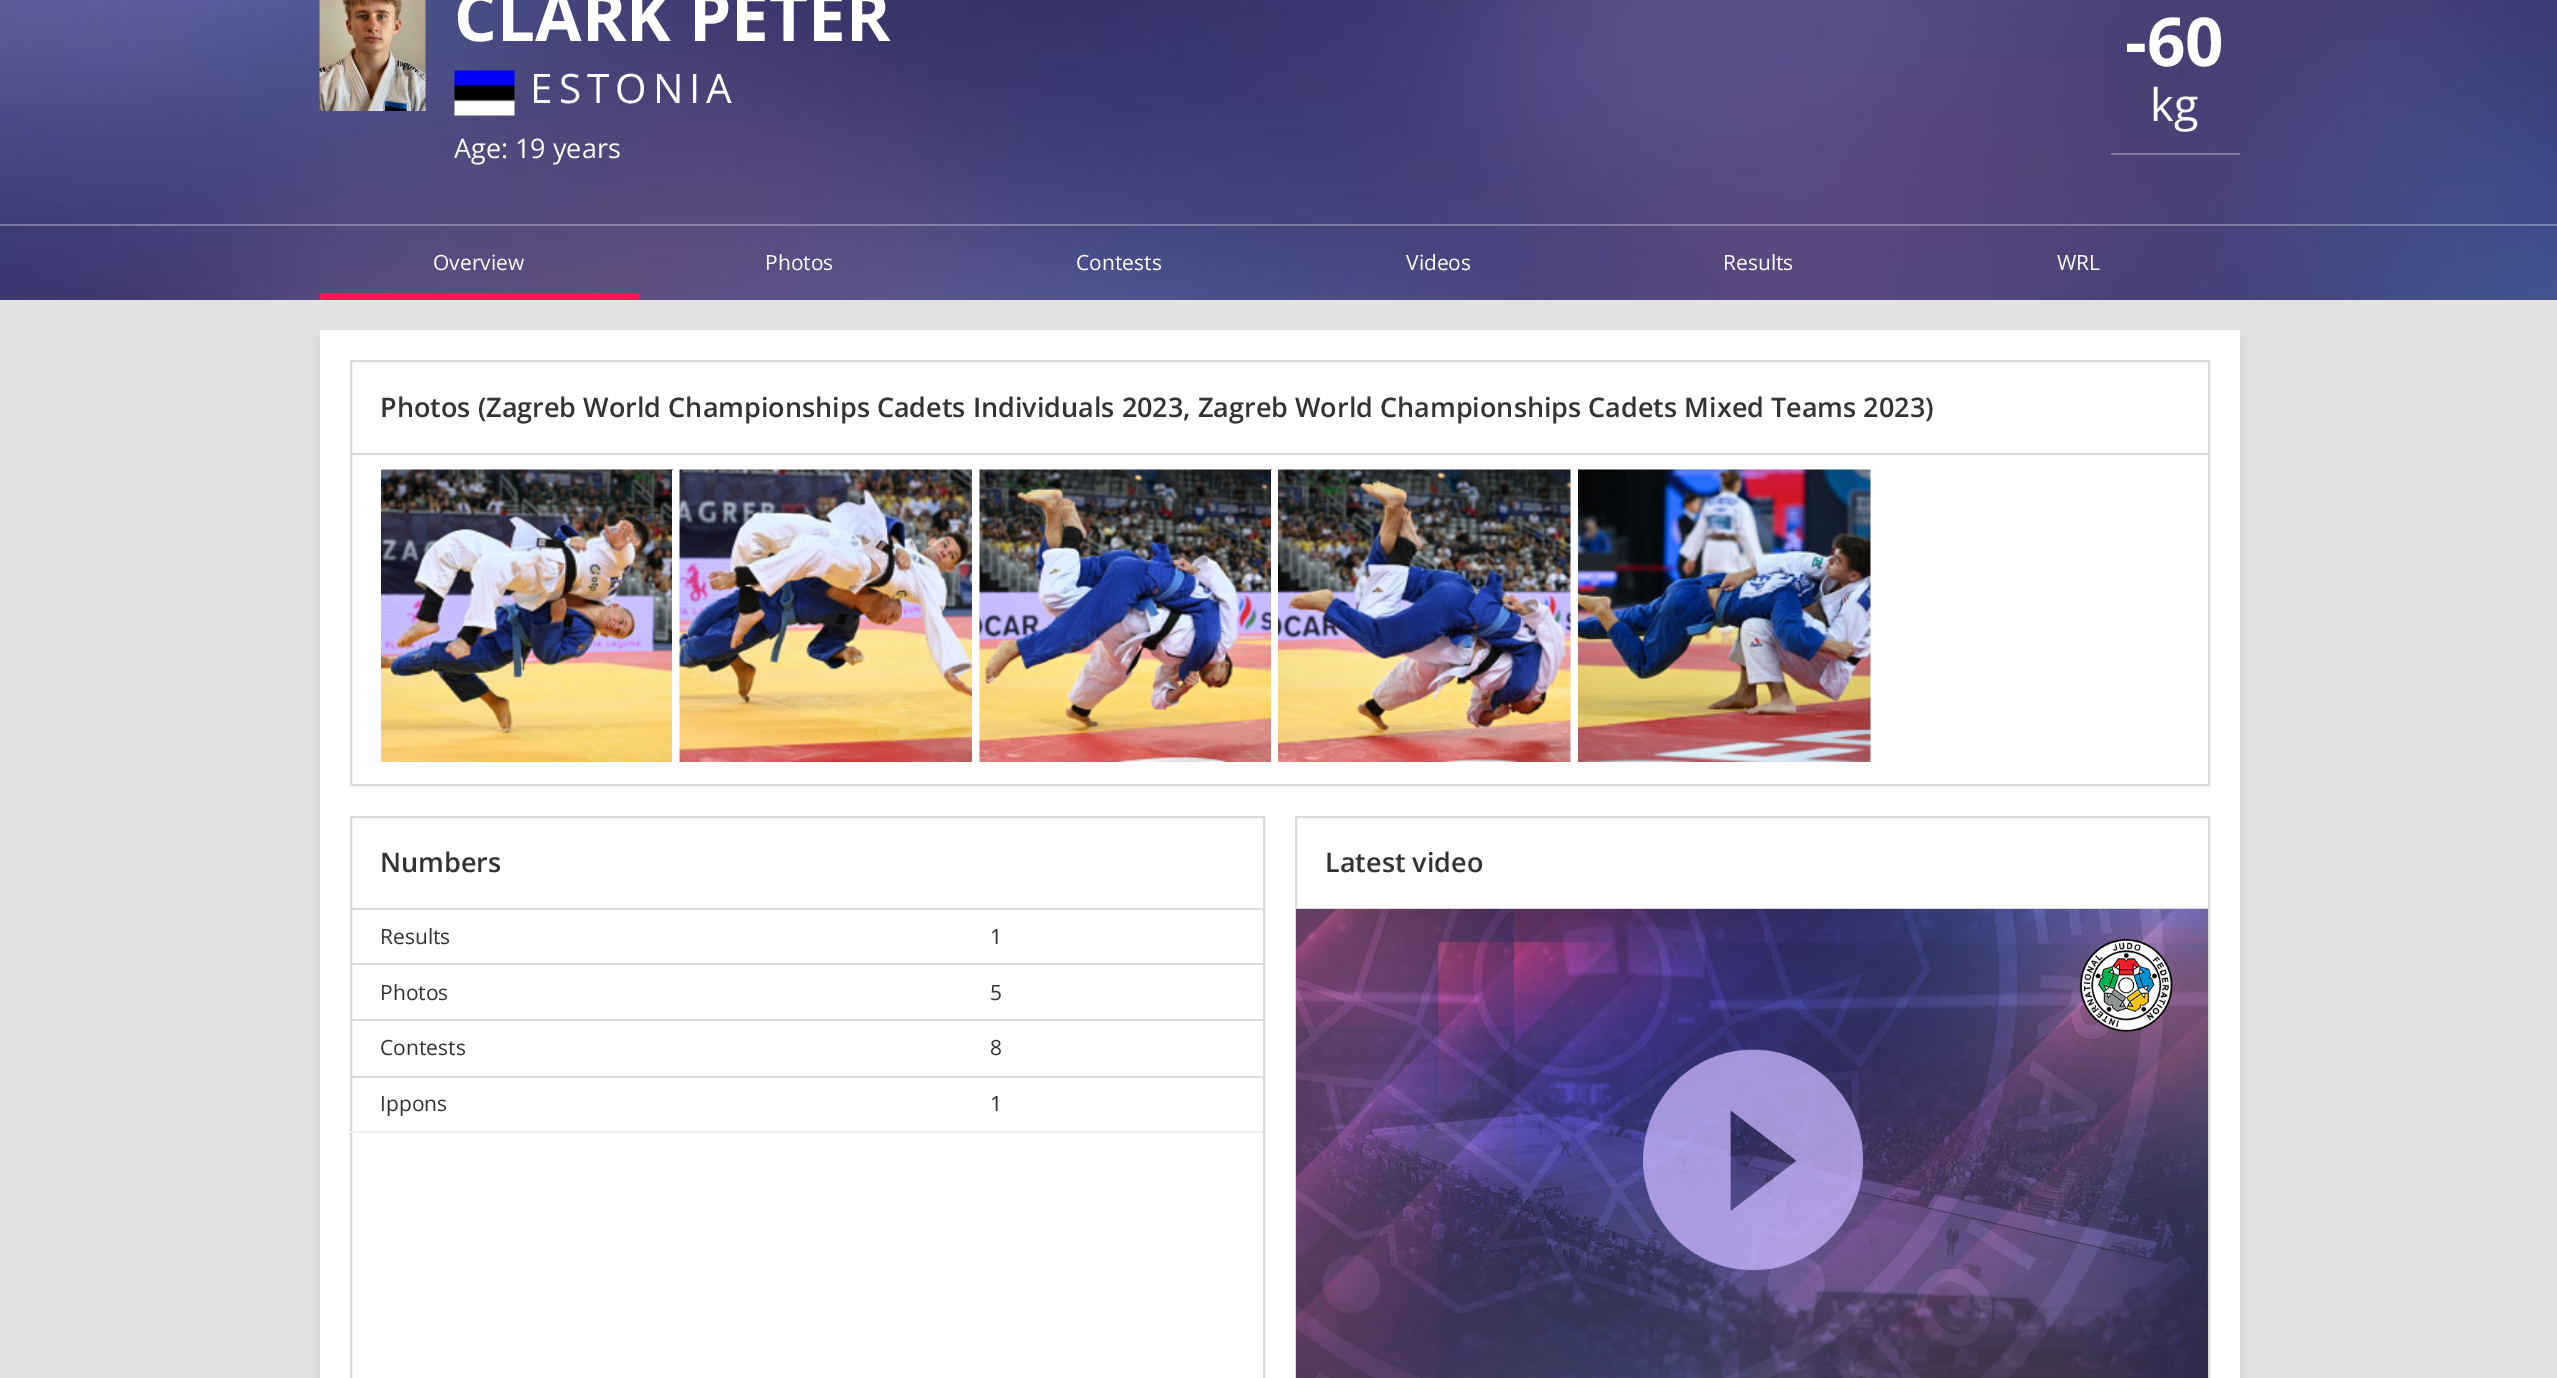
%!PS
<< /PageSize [2557 1378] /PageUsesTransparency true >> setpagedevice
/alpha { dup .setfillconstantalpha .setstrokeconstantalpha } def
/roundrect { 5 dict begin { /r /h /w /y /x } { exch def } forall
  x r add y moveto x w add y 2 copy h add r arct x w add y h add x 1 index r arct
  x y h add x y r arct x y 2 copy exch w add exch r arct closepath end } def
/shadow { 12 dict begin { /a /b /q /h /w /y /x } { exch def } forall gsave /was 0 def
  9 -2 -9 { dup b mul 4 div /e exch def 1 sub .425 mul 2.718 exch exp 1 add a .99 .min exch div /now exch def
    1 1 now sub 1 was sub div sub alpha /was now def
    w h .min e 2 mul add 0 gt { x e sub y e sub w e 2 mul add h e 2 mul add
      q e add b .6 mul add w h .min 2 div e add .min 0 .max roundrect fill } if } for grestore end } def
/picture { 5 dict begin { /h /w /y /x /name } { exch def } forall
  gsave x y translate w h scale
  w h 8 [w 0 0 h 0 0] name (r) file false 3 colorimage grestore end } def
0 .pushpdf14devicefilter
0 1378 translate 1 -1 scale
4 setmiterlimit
0.886 setgray
0 0 2557 1378 rectfill
(img1.rgb) 0 0 2557 300 picture
(img2.rgb) 319 0 107 111 picture
/OpenSans-Bold [67.5 0 0 -67.5 0 0] selectfont
1 setgray
454 41 moveto (CLARK PETER) show
(img3.rgb) 454 70 61 46 picture
/OpenSans-Regular [40.5 0 0 -40.5 0 0] selectfont
530 103 moveto 6 0 (ESTONIA) ashow
/OpenSans-Regular [27 0 0 -27 0 0] selectfont
454 158 moveto (Age: 19 years) show
0.3 alpha
2111 153 129 2 rectfill
/OpenSans-Bold [67.5 0 0 -67.5 0 0] selectfont
1 alpha
2125 66 moveto (-60) show
/OpenSans-Regular [45 0 0 -45 0 0] selectfont
2150 121 moveto (kg) show
0.3 alpha
0 224 2557 2 rectfill
/OpenSans-Regular [21 0 0 -21 0 0] selectfont
1 alpha
433 270 moveto (Overview) show
1 0.082 0.325 setrgbcolor
320 293 319 7 rectfill
1 setgray
765 270 moveto (Photos) show
1076 270 moveto (Contests) show
1406 270 moveto (Videos) show
1723 270 moveto (Results) show
2057 270 moveto (WRL) show
0 setgray
320 338 1920 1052 0 4 0.1 shadow
1 setgray
320 330 1920 1048 rectfill
0.855 setgray
2 setlinewidth
351 361 1858 424 rectstroke
351 453 1857 2 rectfill
/OpenSans-SemiBold [27 0 0 -27 0 0] selectfont
0.2 setgray
380 417 moveto (Photos \(Zagreb World Championships Cadets Individuals 2023, Zagreb World Championships Cadets Mixed Teams 2023\)) show
(img4.rgb) 381 469 293 293 picture
1 setgray
672 470 2 300 rectfill
(img5.rgb) 679 469 293 293 picture
(img6.rgb) 979 469 293 293 picture
1271 470 1 300 rectfill
(img7.rgb) 1278 469 293 293 picture
(img8.rgb) 1578 469 293 293 picture
0.855 setgray
351 817 913 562 rectstroke
351 908 912 2 rectfill
0.2 setgray
380 872 moveto (Numbers) show
/OpenSans-Regular [21 0 0 -21 0 0] selectfont
380 944 moveto (Results) show
990 944 moveto (1) show
380 1000 moveto (Photos) show
0.855 setgray
350 963 913 2 rectfill
0.2 setgray
990 1000 moveto (5) show
380 1055 moveto (Contests) show
0.855 setgray
350 1019 913 2 rectfill
0.2 setgray
990 1055 moveto (8) show
380 1111 moveto (Ippons) show
0.855 setgray
350 1076 913 2 rectfill
0.949 setgray
350 1131 913 2 rectfill
0.2 setgray
990 1111 moveto (1) show
0.855 setgray
1296 817 913 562 rectstroke
1296 908 912 1 rectfill
/OpenSans-SemiBold [27 0 0 -27 0 0] selectfont
0.2 setgray
1325 872 moveto (Latest video) show
(img9.rgb) 1296 909 912 469 picture
.poppdf14devicefilter showpage
